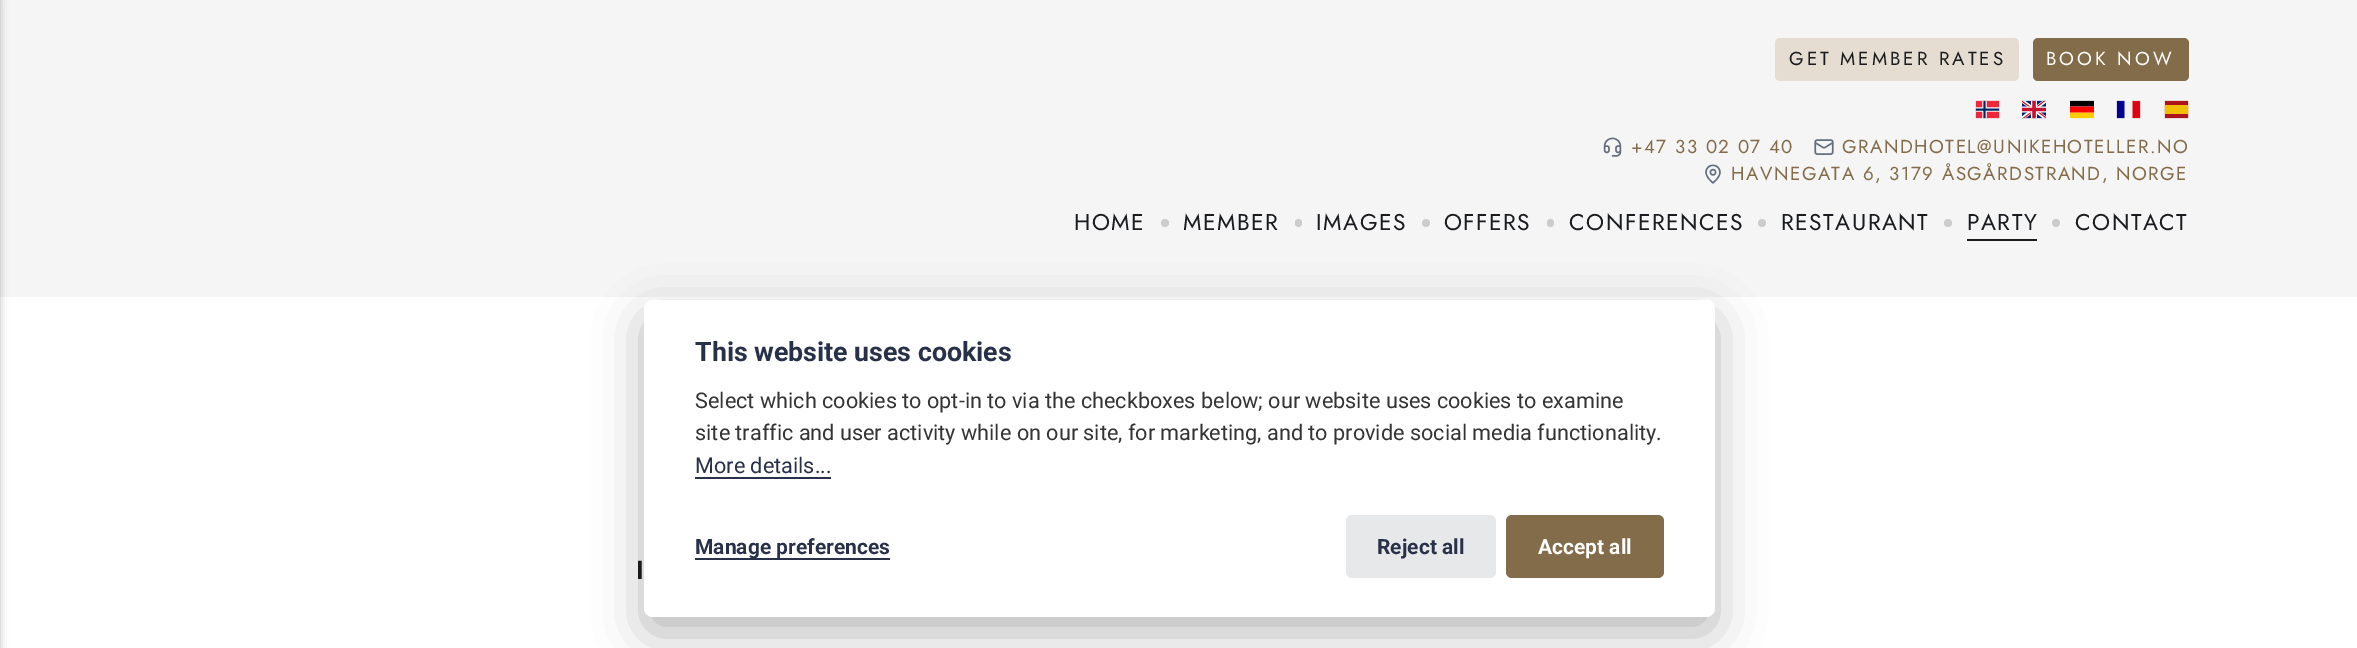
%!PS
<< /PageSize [2357 648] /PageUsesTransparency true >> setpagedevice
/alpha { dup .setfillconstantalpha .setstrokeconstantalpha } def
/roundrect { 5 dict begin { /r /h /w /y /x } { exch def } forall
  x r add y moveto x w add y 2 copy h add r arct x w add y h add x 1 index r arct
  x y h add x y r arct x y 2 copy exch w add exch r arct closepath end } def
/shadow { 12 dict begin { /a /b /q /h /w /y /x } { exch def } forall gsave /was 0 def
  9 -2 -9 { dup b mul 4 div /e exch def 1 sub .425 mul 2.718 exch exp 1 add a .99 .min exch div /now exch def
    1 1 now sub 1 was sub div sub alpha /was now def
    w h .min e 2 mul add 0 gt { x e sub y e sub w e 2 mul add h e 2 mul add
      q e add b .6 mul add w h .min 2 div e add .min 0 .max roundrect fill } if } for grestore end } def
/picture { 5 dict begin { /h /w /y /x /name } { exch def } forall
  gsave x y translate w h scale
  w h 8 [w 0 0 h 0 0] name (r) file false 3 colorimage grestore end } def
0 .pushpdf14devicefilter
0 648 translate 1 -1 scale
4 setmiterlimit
1 setgray
0 0 2357 648 rectfill
0.961 setgray
0 0 2357 297 rectfill
0 setgray
-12 0 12 648 0 4 0.25 shadow
0.898 0.867 0.82 setrgbcolor
1775 38 244 43 5 roundrect fill
/Jost-Regular [18.75 0 0 -18.75 0 0] selectfont
0.098 0.106 0.122 setrgbcolor
1789 65 moveto 3 0 (GET MEMBER RATES) ashow
0.514 0.424 0.286 setrgbcolor
2033 38 156 43 5 roundrect fill
1 setgray
2046 65 moveto 3 0 (BOOK NOW) ashow
(img1.rgb) 1975 100 25 19 picture
(img2.rgb) 2022 100 24 19 picture
(img3.rgb) 2070 100 24 19 picture
(img4.rgb) 2116 100 25 19 picture
(img5.rgb) 2164 100 25 19 picture
(img6.rgb) 1603 137 19 20 picture
0.514 0.424 0.286 setrgbcolor
1631 153 moveto 1.5 0 (+47 33 02 07 40) ashow
(img7.rgb) 1814 139 20 16 picture
1842 153 moveto 1.5 0 (GRANDHOTEL@UNIKEHOTELLER.NO) ashow
(img8.rgb) 1705 164 16 20 picture
1731 180 moveto 1.5 0 (HAVNEGATA 6, 3179 ÅSGÅRDSTRAND, NORGE) ashow
/Jost-Regular [22.75 0 0 -22.75 0 0] selectfont
0.098 0.106 0.122 setrgbcolor
1074 230 moveto 1.5 0 (HOME) ashow
0.8 setgray
newpath 1165 223 4 0 360 arc closepath fill
0.098 0.106 0.122 setrgbcolor
1183 230 moveto 1.5 0 (MEMBER) ashow
0.8 setgray
1295 219 7 8 3.5 roundrect fill
0.098 0.106 0.122 setrgbcolor
1316 230 moveto 1.5 0 (IMAGES) ashow
0.8 setgray
newpath 1426 223 4 0 360 arc closepath fill
0.098 0.106 0.122 setrgbcolor
1444 230 moveto 1.5 0 (OFFERS) ashow
0.8 setgray
1547 219 7 8 3.5 roundrect fill
0.098 0.106 0.122 setrgbcolor
1569 230 moveto 1.5 0 (CONFERENCES) ashow
0.8 setgray
newpath 1762 223 4 0 360 arc closepath fill
0.098 0.106 0.122 setrgbcolor
1781 230 moveto 1.5 0 (RESTAURANT) ashow
0.8 setgray
newpath 1948 223 4 0 360 arc closepath fill
0.098 0.106 0.122 setrgbcolor
1967 230 moveto 1.5 0 (PARTY) ashow
1967 239 70 2 rectfill
0.8 setgray
newpath 2056 223 4 0 360 arc closepath fill
0.098 0.106 0.122 setrgbcolor
2075 230 moveto 1.5 0 (CONTACT) ashow
0.008 0.008 0.012 setrgbcolor
644 317 1071 316 9 24 0.28 shadow
1 setgray
644 300 1071 317 9 roundrect fill
/Roboto-Bold [26.75 0 0 -26.75 0 0] selectfont
0.157 0.192 0.286 setrgbcolor
695 361 moveto (This website uses cookies) show
/Roboto-Regular [21.65 0 0 -21.65 0 0] selectfont
0.204 0.204 0.208 setrgbcolor
695 408 moveto (Select which cookies to opt-in to via the checkboxes below; our website uses cookies to examine) show
695 440 moveto (site traffic and user activity while on our site, for marketing, and to provide social media functionality.) show
0.157 0.192 0.286 setrgbcolor
695 473 moveto (More details...) show
695 477 136 2 rectfill
695 558 195 2 rectfill
/Roboto-Bold [21 0 0 -21 0 0] selectfont
695 554 moveto (Manage preferences) show
0.906 0.91 0.918 setrgbcolor
1346 515 150 63 6 roundrect fill
0.157 0.192 0.286 setrgbcolor
1377 554 moveto (Reject all) show
0.514 0.424 0.286 setrgbcolor
1506 515 158 63 6 roundrect fill
1 setgray
1538 554 moveto (Accept all) show
/Jost-SemiBold [26 0 0 -26 0 0] selectfont
0.098 0.106 0.122 setrgbcolor
636 579 moveto (I) show
.poppdf14devicefilter showpage
